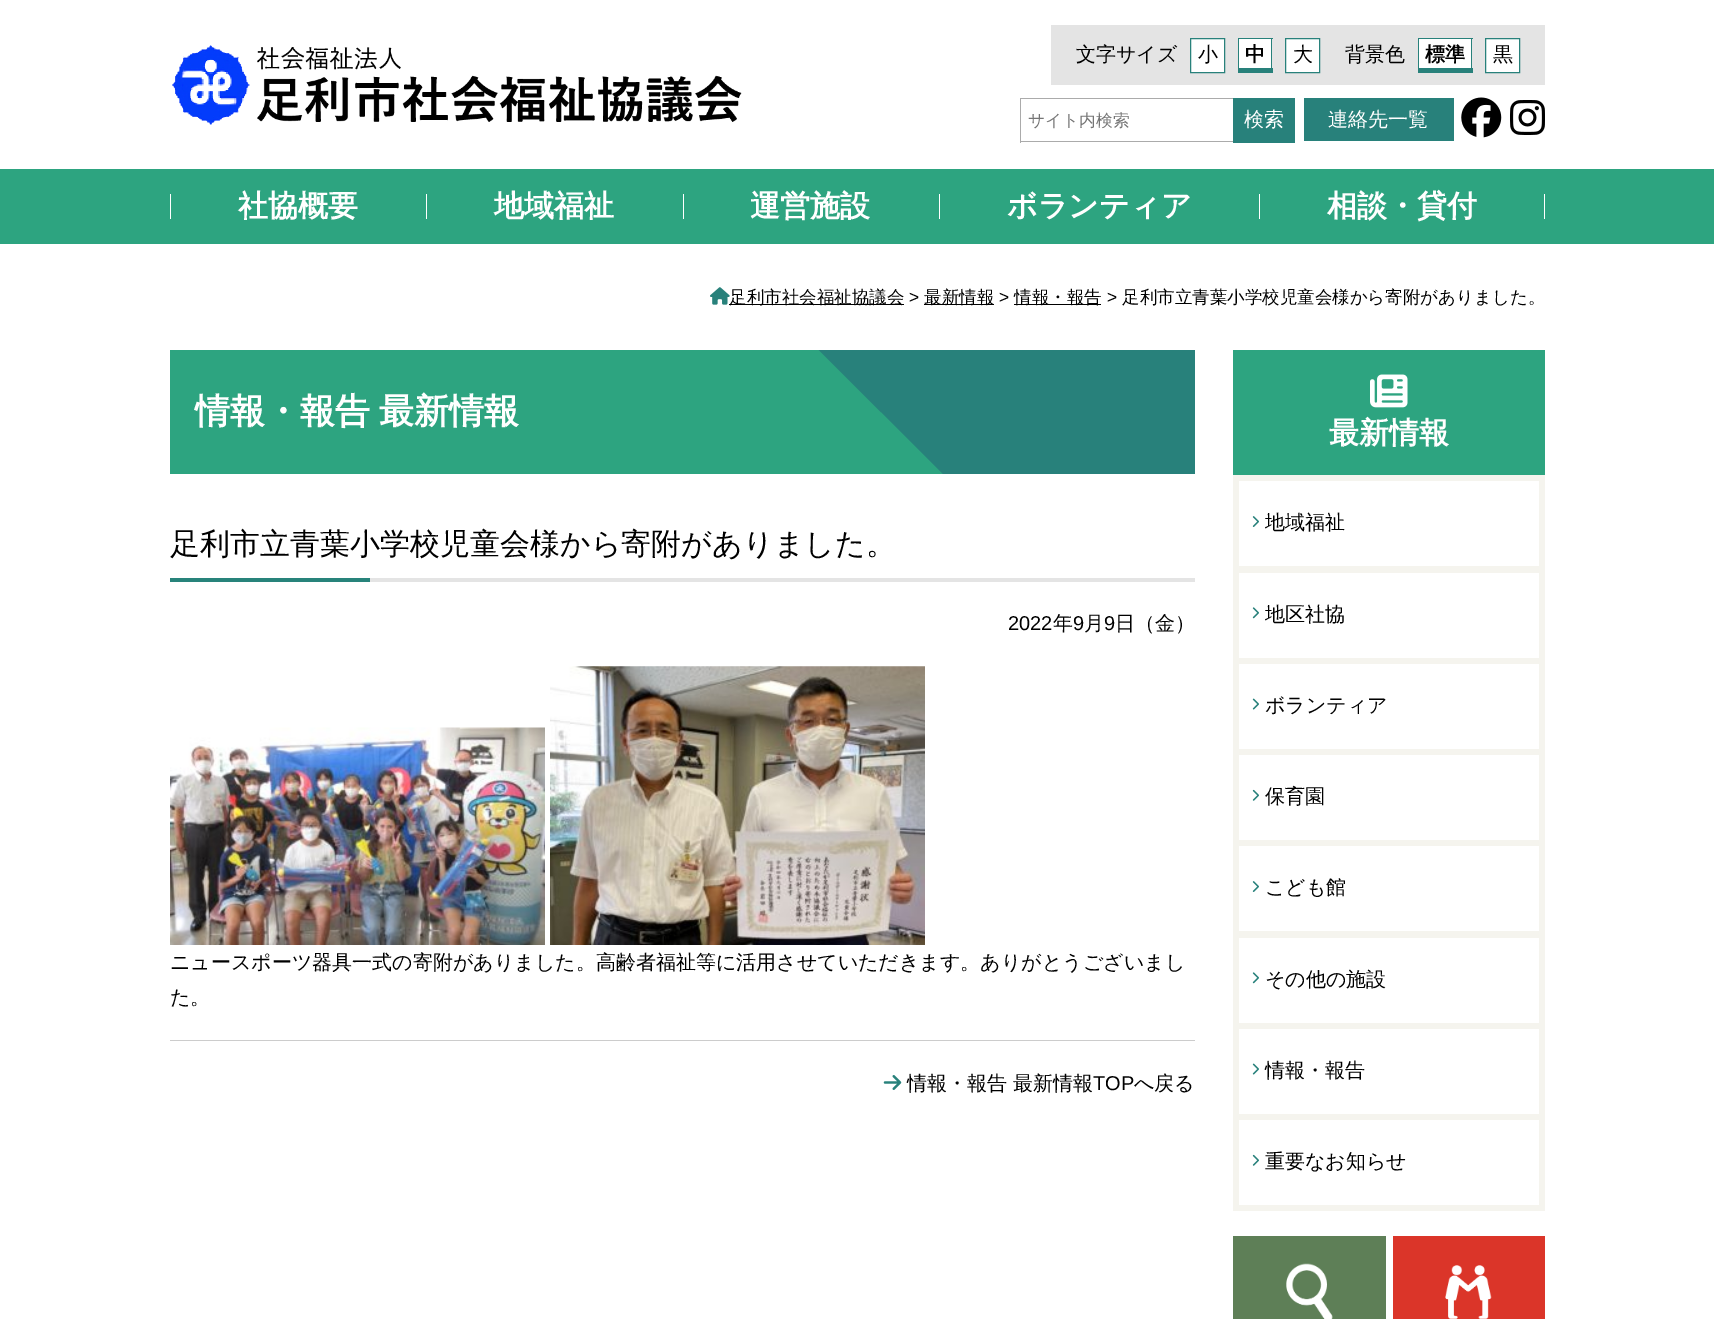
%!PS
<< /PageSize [1714 1319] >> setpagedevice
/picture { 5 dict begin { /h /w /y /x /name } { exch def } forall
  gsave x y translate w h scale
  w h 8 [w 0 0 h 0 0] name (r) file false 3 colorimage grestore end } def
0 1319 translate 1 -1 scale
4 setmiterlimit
1 setgray
0 0 1714 1319 rectfill
(img1.rgb) 172 45 570 80 picture
0.894 setgray
1051 25 494 60 rectfill
/WenQuanYiZenHei-Medium [20 0 0 -20 0 0] selectfont
0 setgray
1076 61 moveto (文字サイズ) show
1 setgray
newpath 1190.5 38.5 moveto 1224.5 38.5 lineto 1224.5 72.5 lineto 1190.5 72.5 lineto closepath gsave fill grestore
0.157 0.506 0.482 setrgbcolor
stroke
0 setgray
1198 61 moveto (小) show
1 setgray
1239 39 32 29 rectfill
0.157 0.506 0.482 setrgbcolor
1238 38 35 1 rectfill
1271 38 1 35 rectfill
1238 68 35 5 rectfill
1238 38 1 35 rectfill
/WenQuanYiZenHei-Bold [20 0 0 -20 0 0] selectfont
0 setgray
1245 61 moveto (中) show
1 setgray
newpath 1285.5 38.5 moveto 1319.5 38.5 lineto 1319.5 72.5 lineto 1285.5 72.5 lineto closepath gsave fill grestore
0.157 0.506 0.482 setrgbcolor
stroke
/WenQuanYiZenHei-Medium [20 0 0 -20 0 0] selectfont
0 setgray
1293 61 moveto (大) show
1345 61 moveto (背景色) show
1 setgray
1419 39 52 29 rectfill
0.157 0.506 0.482 setrgbcolor
1418 38 55 1 rectfill
1471 38 1 35 rectfill
1418 68 55 5 rectfill
1418 38 1 35 rectfill
/WenQuanYiZenHei-Bold [20 0 0 -20 0 0] selectfont
0 setgray
1425 61 moveto (標準) show
1 setgray
newpath 1485.5 38.5 moveto 1519.5 38.5 lineto 1519.5 72.5 lineto 1485.5 72.5 lineto closepath gsave fill grestore
0.157 0.506 0.482 setrgbcolor
stroke
/WenQuanYiZenHei-Medium [20 0 0 -20 0 0] selectfont
0 setgray
1493 61 moveto (黒) show
0.671 setgray
1020 98 213 1 rectfill
1020 141 213 1 rectfill
1020 98 1 45 rectfill
/WenQuanYiZenHei-Medium [16.75 0 0 -16.75 0 0] selectfont
0.459 setgray
1028 126 moveto (サイト内検索) show
0.157 0.506 0.482 setrgbcolor
1233 98 62 45 rectfill
/WenQuanYiZenHei-Medium [20 0 0 -20 0 0] selectfont
1 setgray
1244 126 moveto (検索) show
0.157 0.506 0.482 setrgbcolor
1304 98 150 43 rectfill
1 setgray
1328 126 moveto (連絡先一覧) show
(img2.rgb) 1461 97 41 41 picture
(img3.rgb) 1510 100 35 35 picture
0.176 0.643 0.502 setrgbcolor
0 169 1714 75 rectfill
1 setgray
170 194 1 25 rectfill
/WenQuanYiZenHei-Bold [30 0 0 -30 0 0] selectfont
238 216 moveto (社協概要) show
426 194 1 25 rectfill
494 216 moveto (地域福祉) show
683 194 1 25 rectfill
750 216 moveto (運営施設) show
939 194 1 25 rectfill
1007 216 moveto (ボランティア) show
1259 194 1 25 rectfill
1327 216 moveto (相談・貸付) show
1544 194 1 25 rectfill
(img4.rgb) 710 287 20 18 picture
0 setgray
729 304 175 1 rectfill
/WenQuanYiZenHei-Medium [17.5 0 0 -17.5 0 0] selectfont
729 303 moveto (足利市社会福祉協議会) show
/LiberationSans-Regular [17.5 0 0 -17.5 0 0] selectfont
909 303 moveto (>) show
924 304 70 1 rectfill
/WenQuanYiZenHei-Medium [17.5 0 0 -17.5 0 0] selectfont
924 303 moveto (最新情報) show
/LiberationSans-Regular [17.5 0 0 -17.5 0 0] selectfont
999 303 moveto (>) show
1014 304 87 1 rectfill
/WenQuanYiZenHei-Medium [17.5 0 0 -17.5 0 0] selectfont
1014 303 moveto (情報・報告) show
/LiberationSans-Regular [17.5 0 0 -17.5 0 0] selectfont
1107 303 moveto (>) show
/WenQuanYiZenHei-Medium [17.5 0 0 -17.5 0 0] selectfont
1122 303 moveto (足利市立青葉小学校児童会様から寄附がありました。) show
0.176 0.643 0.502 setrgbcolor
170 350 773 124 rectfill
/WenQuanYiZenHei-Bold [35 0 0 -35 0 0] selectfont
1 setgray
195 423 moveto -1 0 32 (情報・報告 最新情報) widthshow
gsave
170 350 1025 124 rectclip
0.157 0.506 0.482 setrgbcolor
newpath 805 336 moveto 1070 70 lineto 1335 336 lineto 1070 601 lineto closepath fill
grestore
0.894 setgray
370 578 825 4 rectfill
/WenQuanYiZenHei-Medium [30 0 0 -30 0 0] selectfont
0 setgray
170 554 moveto (足利市立青葉小学校児童会様から寄附がありました。) show
0.157 0.514 0.482 setrgbcolor
170 578 200 4 rectfill
/LiberationSans-Regular [20 0 0 -20 0 0] selectfont
0 setgray
1008 630 moveto (2022) show
/WenQuanYiZenHei-Medium [20 0 0 -20 0 0] selectfont
1053 630 moveto (年) show
/LiberationSans-Regular [20 0 0 -20 0 0] selectfont
1073 630 moveto (9) show
/WenQuanYiZenHei-Medium [20 0 0 -20 0 0] selectfont
1084 630 moveto (月) show
/LiberationSans-Regular [20 0 0 -20 0 0] selectfont
1104 630 moveto (9) show
/WenQuanYiZenHei-Medium [20 0 0 -20 0 0] selectfont
1115 630 moveto (日（金）) show
0.8 setgray
170 1040 1025 1 rectfill
(img5.rgb) 170 727 375 218 picture
(img6.rgb) 550 666 375 279 picture
0 setgray
170 969 moveto (ニュースポーツ器具一式の寄附がありました。高齢者福祉等に活用させていただきます。ありがとうございまし) show
170 1004 moveto (た。) show
(img7.rgb) 883 1075 19 15 picture
907 1090 moveto (情報・報告 最新情報) show
/LiberationSans-Regular [20 0 0 -20 0 0] selectfont
1093 1090 moveto (TOP) show
/WenQuanYiZenHei-Medium [20 0 0 -20 0 0] selectfont
1134 1090 moveto (へ戻る) show
0.176 0.643 0.502 setrgbcolor
1233 350 312 125 rectfill
(img8.rgb) 1370 374 38 34 picture
/WenQuanYiZenHei-Bold [30 0 0 -30 0 0] selectfont
1 setgray
1329 443 moveto (最新情報) show
0.961 0.957 0.933 setrgbcolor
1233 475 312 736 rectfill
1 setgray
1239 481 300 85 rectfill
(img9.rgb) 1252 516 7 11 picture
/WenQuanYiZenHei-Medium [20 0 0 -20 0 0] selectfont
0 setgray
1265 529 moveto (地域福祉) show
1 setgray
1239 573 300 85 rectfill
(img10.rgb) 1252 607 7 12 picture
0 setgray
1265 621 moveto (地区社協) show
1 setgray
1239 664 300 85 rectfill
(img11.rgb) 1252 698 7 12 picture
0 setgray
1265 712 moveto (ボランティア) show
1 setgray
1239 755 300 85 rectfill
(img12.rgb) 1252 789 7 12 picture
0 setgray
1265 803 moveto (保育園) show
1 setgray
1239 846 300 85 rectfill
(img9.rgb) 1252 881 7 11 picture
0 setgray
1265 894 moveto (こども館) show
1 setgray
1239 938 300 85 rectfill
(img10.rgb) 1252 972 7 12 picture
0 setgray
1265 986 moveto (その他の施設) show
1 setgray
1239 1029 300 85 rectfill
(img11.rgb) 1252 1063 7 12 picture
0 setgray
1265 1077 moveto (情報・報告) show
1 setgray
1239 1120 300 85 rectfill
(img12.rgb) 1252 1154 7 12 picture
0 setgray
1265 1168 moveto (重要なお知らせ) show
0.369 0.498 0.341 setrgbcolor
1233 1236 153 83 rectfill
(img13.rgb) 1286 1263 47 56 picture
0.859 0.208 0.161 setrgbcolor
1393 1236 152 83 rectfill
(img14.rgb) 1445 1265 47 54 picture
showpage
